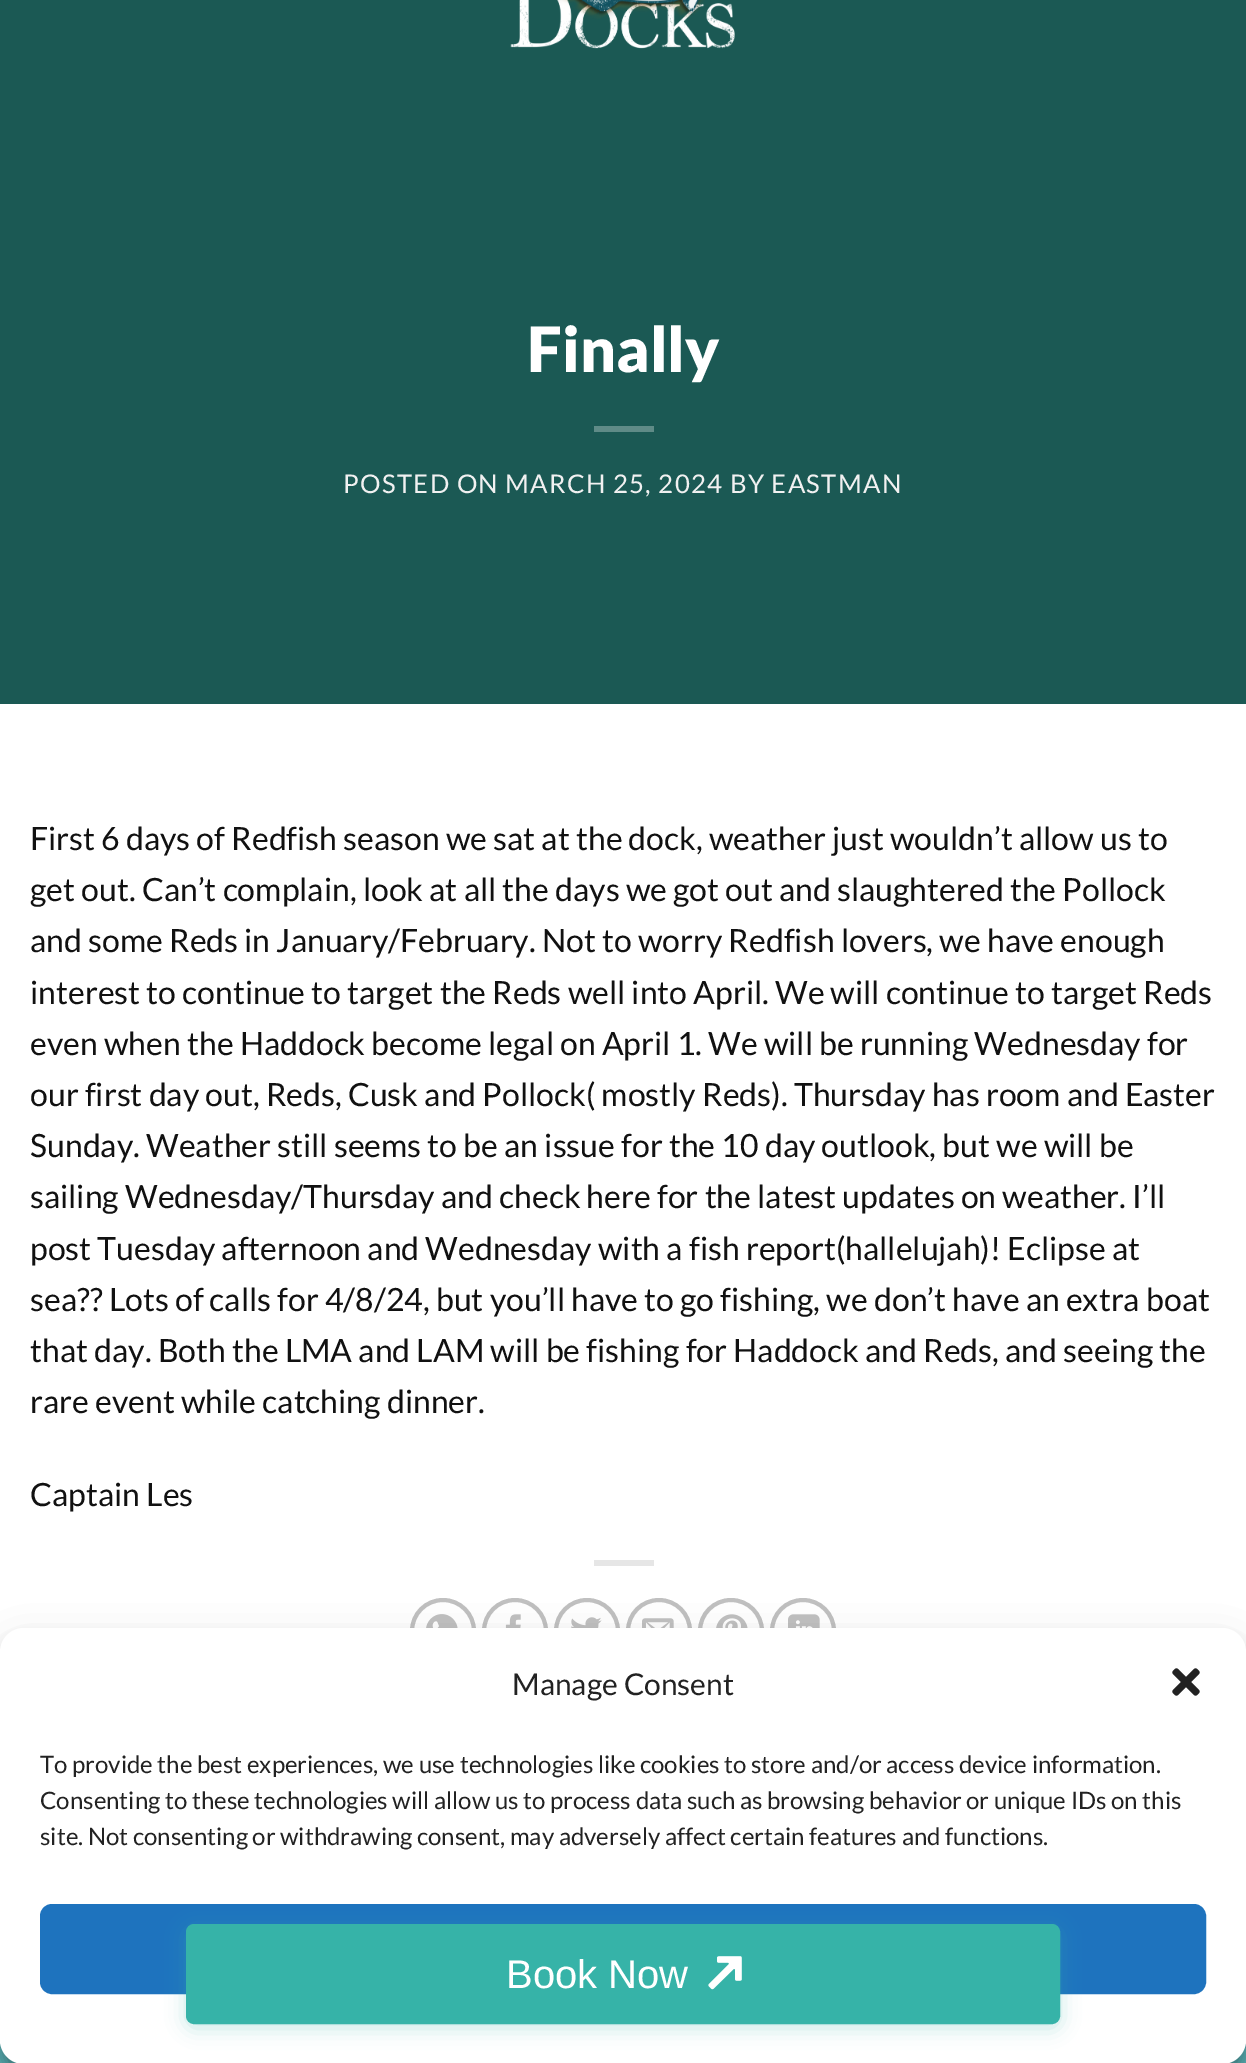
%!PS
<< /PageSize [1246 2063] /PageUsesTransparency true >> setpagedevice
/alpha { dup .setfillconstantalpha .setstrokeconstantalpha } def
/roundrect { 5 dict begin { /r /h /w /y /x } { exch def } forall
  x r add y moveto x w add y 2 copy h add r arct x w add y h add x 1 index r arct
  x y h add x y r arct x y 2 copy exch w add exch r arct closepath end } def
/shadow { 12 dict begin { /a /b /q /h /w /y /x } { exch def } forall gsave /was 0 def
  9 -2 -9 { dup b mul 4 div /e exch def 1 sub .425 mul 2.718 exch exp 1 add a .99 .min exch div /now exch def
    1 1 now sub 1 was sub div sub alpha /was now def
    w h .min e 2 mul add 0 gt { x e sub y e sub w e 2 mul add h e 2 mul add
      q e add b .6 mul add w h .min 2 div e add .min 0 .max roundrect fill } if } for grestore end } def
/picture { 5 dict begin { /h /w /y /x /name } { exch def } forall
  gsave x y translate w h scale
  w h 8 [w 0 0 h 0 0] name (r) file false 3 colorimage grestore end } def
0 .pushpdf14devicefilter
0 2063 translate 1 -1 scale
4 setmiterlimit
1 setgray
0 0 1246 2063 rectfill
0.106 0.349 0.329 setrgbcolor
0 0 1246 704 rectfill
(img1.rgb) 510 0 225 49 picture
/Lato-Black [62.5 0 0 -62.5 0 0] selectfont
1 setgray
527 372 moveto (Finally) show
0.373 0.545 0.529 setrgbcolor
594 426 60 6 rectfill
/Lato-Regular [25.75 0 0 -25.75 0 0] selectfont
0.945 setgray
343 493 moveto 1.3 0 (POSTED ON MARCH 25, 2024 BY EASTMAN) ashow
/Lato-Regular [32 0 0 -32 0 0] selectfont
0.067 setgray
30 850 moveto (First 6 days of Redfish season we sat at the dock, weather just wouldn’t allow us to) show
30 901 moveto (get out. Can’t complain, look at all the days we got out and slaughtered the Pollock) show
30 952 moveto (and some Reds in January/February. Not to worry Redfish lovers, we have enough) show
30 1004 moveto (interest to continue to target the Reds well into April. We will continue to target Reds) show
30 1055 moveto (even when the Haddock become legal on April 1. We will be running Wednesday for) show
30 1106 moveto (our first day out, Reds, Cusk and Pollock\( mostly Reds\). Thursday has room and Easter) show
30 1157 moveto (Sunday. Weather still seems to be an issue for the 10 day outlook, but we will be) show
30 1208 moveto (sailing Wednesday/Thursday and check here for the latest updates on weather. I’ll) show
30 1260 moveto (post Tuesday afternoon and Wednesday with a fish report\(hallelujah\)! Eclipse at) show
30 1311 moveto (sea?? Lots of calls for 4/8/24, but you’ll have to go fishing, we don’t have an extra boat) show
30 1362 moveto (that day. Both the LMA and LAM will be fishing for Haddock and Reds, and seeing the) show
30 1413 moveto (rare event while catching dinner.) show
30 1506 moveto (Captain Les) show
0.902 setgray
594 1560 60 6 rectfill
0.753 setgray
4 setlinewidth
newpath 443 1631 31 0 360 arc closepath stroke
(img2.rgb) 426 1614 32 14 picture
newpath 515 1631 31 0 360 arc closepath stroke
(img3.rgb) 505 1614 16 14 picture
newpath 587 1631 31 0 360 arc closepath stroke
(img4.rgb) 571 1617 31 11 picture
newpath 659 1631 31 0 360 arc closepath stroke
(img5.rgb) 642 1618 32 10 picture
newpath 731 1631 31 0 360 arc closepath stroke
(img6.rgb) 716 1614 32 14 picture
newpath 803 1631 31 0 360 arc closepath stroke
(img7.rgb) 788 1614 32 14 picture
0.376 0.725 0.741 setrgbcolor
0 2044 1246 19 rectfill
0 setgray
0 1640 1246 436 24 6 0.23 shadow
0 1648 1246 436 24 20 0.19 shadow
1 setgray
0 1628 1246 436 24 roundrect fill
/Lato-Regular [30 0 0 -30 0 0] selectfont
0.133 setgray
512 1695 moveto (Manage Consent) show
(img8.rgb) 1172 1668 28 28 picture
/Lato-Regular [24 0 0 -24 0 0] selectfont
40 1773 moveto (To provide the best experiences, we use technologies like cookies to store and/or access device information.) show
40 1809 moveto (Consenting to these technologies will allow us to process data such as browsing behavior or unique IDs on this) show
40 1845 moveto (site. Not consenting or withdrawing consent, may adversely affect certain features and functions.) show
0.118 0.451 0.745 setrgbcolor
41 1905 1164 88 11 roundrect gsave fill grestore
2 setlinewidth
stroke
0.212 0.702 0.659 setrgbcolor
186 1928 874 100 8 10 0.3 shadow
187 1925 872 98 7 roundrect gsave fill grestore
stroke
/LiberationSans-Regular [40 0 0 -40 0 0] selectfont
1 setgray
506 1988 moveto (Book Now) show
(img9.rgb) 708 1956 34 34 picture
.poppdf14devicefilter showpage
